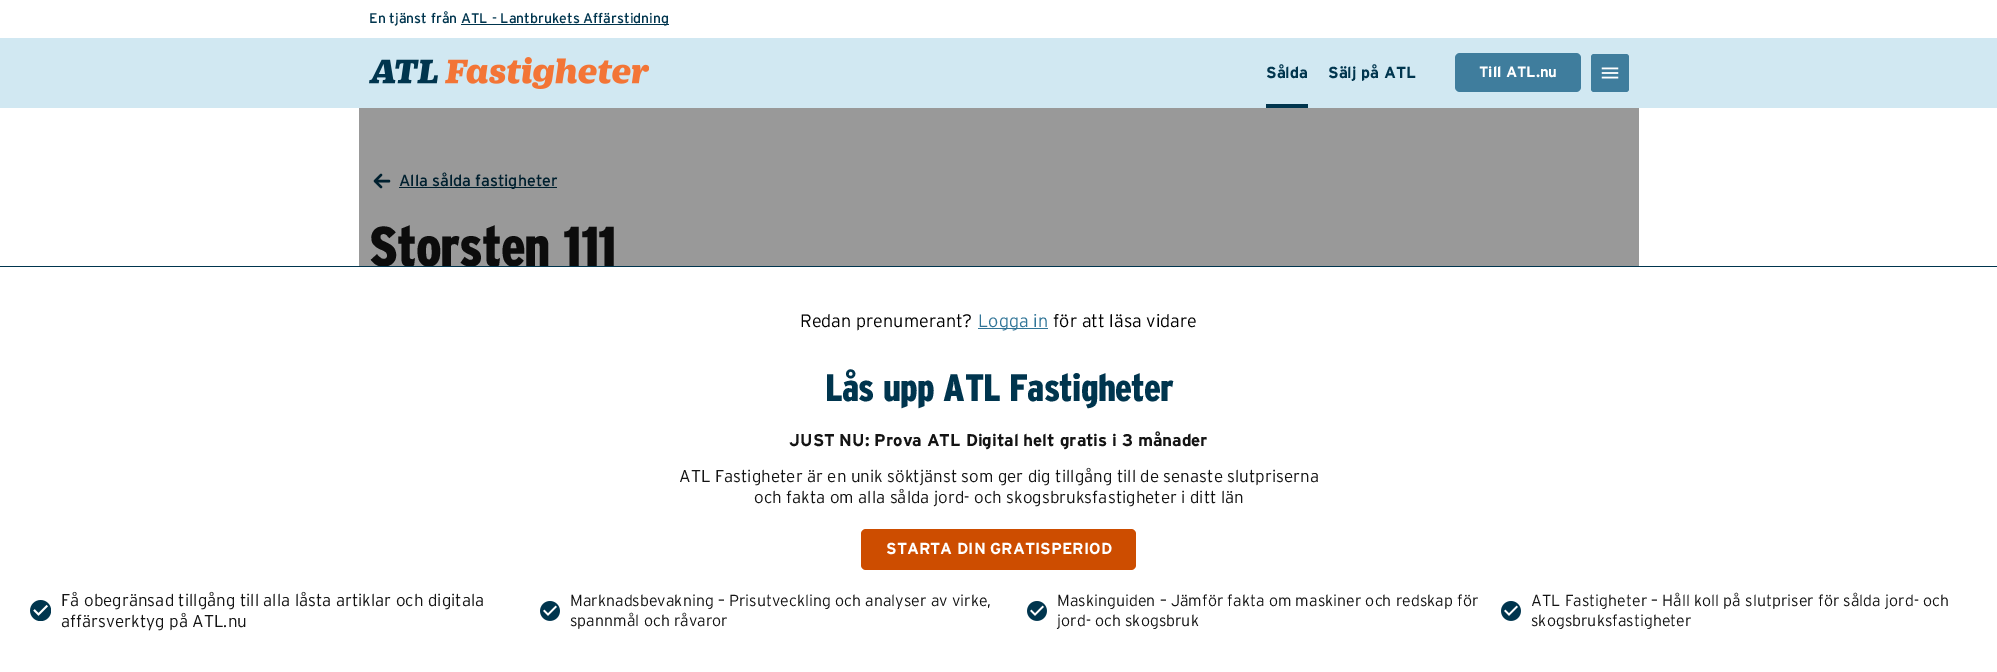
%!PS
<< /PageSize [1997 672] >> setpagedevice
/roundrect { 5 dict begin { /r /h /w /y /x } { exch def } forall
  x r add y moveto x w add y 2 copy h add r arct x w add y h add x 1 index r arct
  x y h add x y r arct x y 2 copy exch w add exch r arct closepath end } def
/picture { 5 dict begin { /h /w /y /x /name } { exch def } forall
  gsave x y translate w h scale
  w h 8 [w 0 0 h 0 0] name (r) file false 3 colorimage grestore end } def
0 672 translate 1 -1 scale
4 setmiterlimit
1 setgray
0 0 1997 672 rectfill
0.6 setgray
359 108 1280 158 rectfill
/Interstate-Regular [14 0 0 -14 0 0] selectfont
0 0.208 0.306 setrgbcolor
369 23 moveto (En tjänst från) show
461 24 208 1 rectfill
461 23 moveto (ATL - Lantbrukets Affärstidning) show
0.82 0.91 0.949 setrgbcolor
0 38 1997 70 rectfill
(img1.rgb) 369 57 280 32 picture
/Interstate-Bold [16 0 0 -16 0 0] selectfont
0 0.208 0.306 setrgbcolor
1266 78 moveto (Sålda) show
1266 104 42 4 rectfill
1328 78 moveto (Sälj på ATL) show
0.247 0.49 0.616 setrgbcolor
1455 53 126 39 5 roundrect fill
/Interstate-Bold [15 0 0 -15 0 0] selectfont
1 setgray
1479 77 moveto (Till ATL.nu) show
0.247 0.49 0.616 setrgbcolor
1591 54 38 38 3 roundrect fill
(img2.rgb) 1601 67 18 12 picture
0 0.125 0.184 setrgbcolor
2.4 setlinewidth
1 setlinecap
1 setlinejoin
newpath 381 187 moveto 375 181 lineto 375 181 moveto 381 175 lineto 375 181 moveto 389 181 lineto stroke
399 187 158 1 rectfill
/Interstate-Regular [16 0 0 -16 0 0] selectfont
399 186 moveto (Alla sålda fastigheter) show
/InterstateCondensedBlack-Black [56 0 0 -56 0 0] selectfont
0.047 setgray
369 266 moveto -1.1 0 (Storsten 111) ashow
0 0.208 0.306 setrgbcolor
0 266 1997 1 rectfill
/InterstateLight-Light [18 0 0 -18 0 0] selectfont
0 setgray
800 327 moveto (Redan prenumerant?) show
0.192 0.459 0.596 setrgbcolor
978 328 70 1 rectfill
978 327 moveto (Logga in) show
0 setgray
1053 327 moveto (för att läsa vidare) show
/InterstateCondensedBlack-Black [38.25 0 0 -38.25 0 0] selectfont
0 0.208 0.306 setrgbcolor
825 401 moveto -0.75 0 (Lås upp ATL Fastigheter) ashow
/Interstate-Bold [17 0 0 -17 0 0] selectfont
0.078 setgray
789 446 moveto (JUST NU: Prova ATL Digital helt gratis i 3 månader) show
/InterstateLight-Light [17 0 0 -17 0 0] selectfont
679 482 moveto (ATL Fastigheter är en unik söktjänst som ger dig tillgång till de senaste slutpriserna) show
754 503 moveto (och fakta om alla sålda jord- och skogsbruksfastigheter i ditt län) show
0.804 0.302 0 setrgbcolor
861 529 275 41 5 roundrect fill
/Interstate-Bold [16 0 0 -16 0 0] selectfont
1 setgray
886 554 moveto (STARTA DIN GRATISPERIOD) show
(img3.rgb) 30 600 21 21 picture
/InterstateLight-Light [17 0 0 -17 0 0] selectfont
0.078 setgray
61 606 moveto (Få obegränsad tillgång till alla låsta artiklar och digitala) show
61 627 moveto (affärsverktyg på ATL.nu) show
(img4.rgb) 540 601 20 20 picture
/InterstateLight-Light [16 0 0 -16 0 0] selectfont
570 606 moveto (Marknadsbevakning – Prisutveckling och analyser av virke,) show
570 626 moveto (spannmål och råvaror) show
(img4.rgb) 1027 601 20 20 picture
1057 606 moveto (Maskinguiden – Jämför fakta om maskiner och redskap för) show
1057 626 moveto (jord- och skogsbruk) show
(img4.rgb) 1501 601 20 20 picture
1531 606 moveto (ATL Fastigheter – Håll koll på slutpriser för sålda jord- och) show
1531 626 moveto (skogsbruksfastigheter) show
showpage
